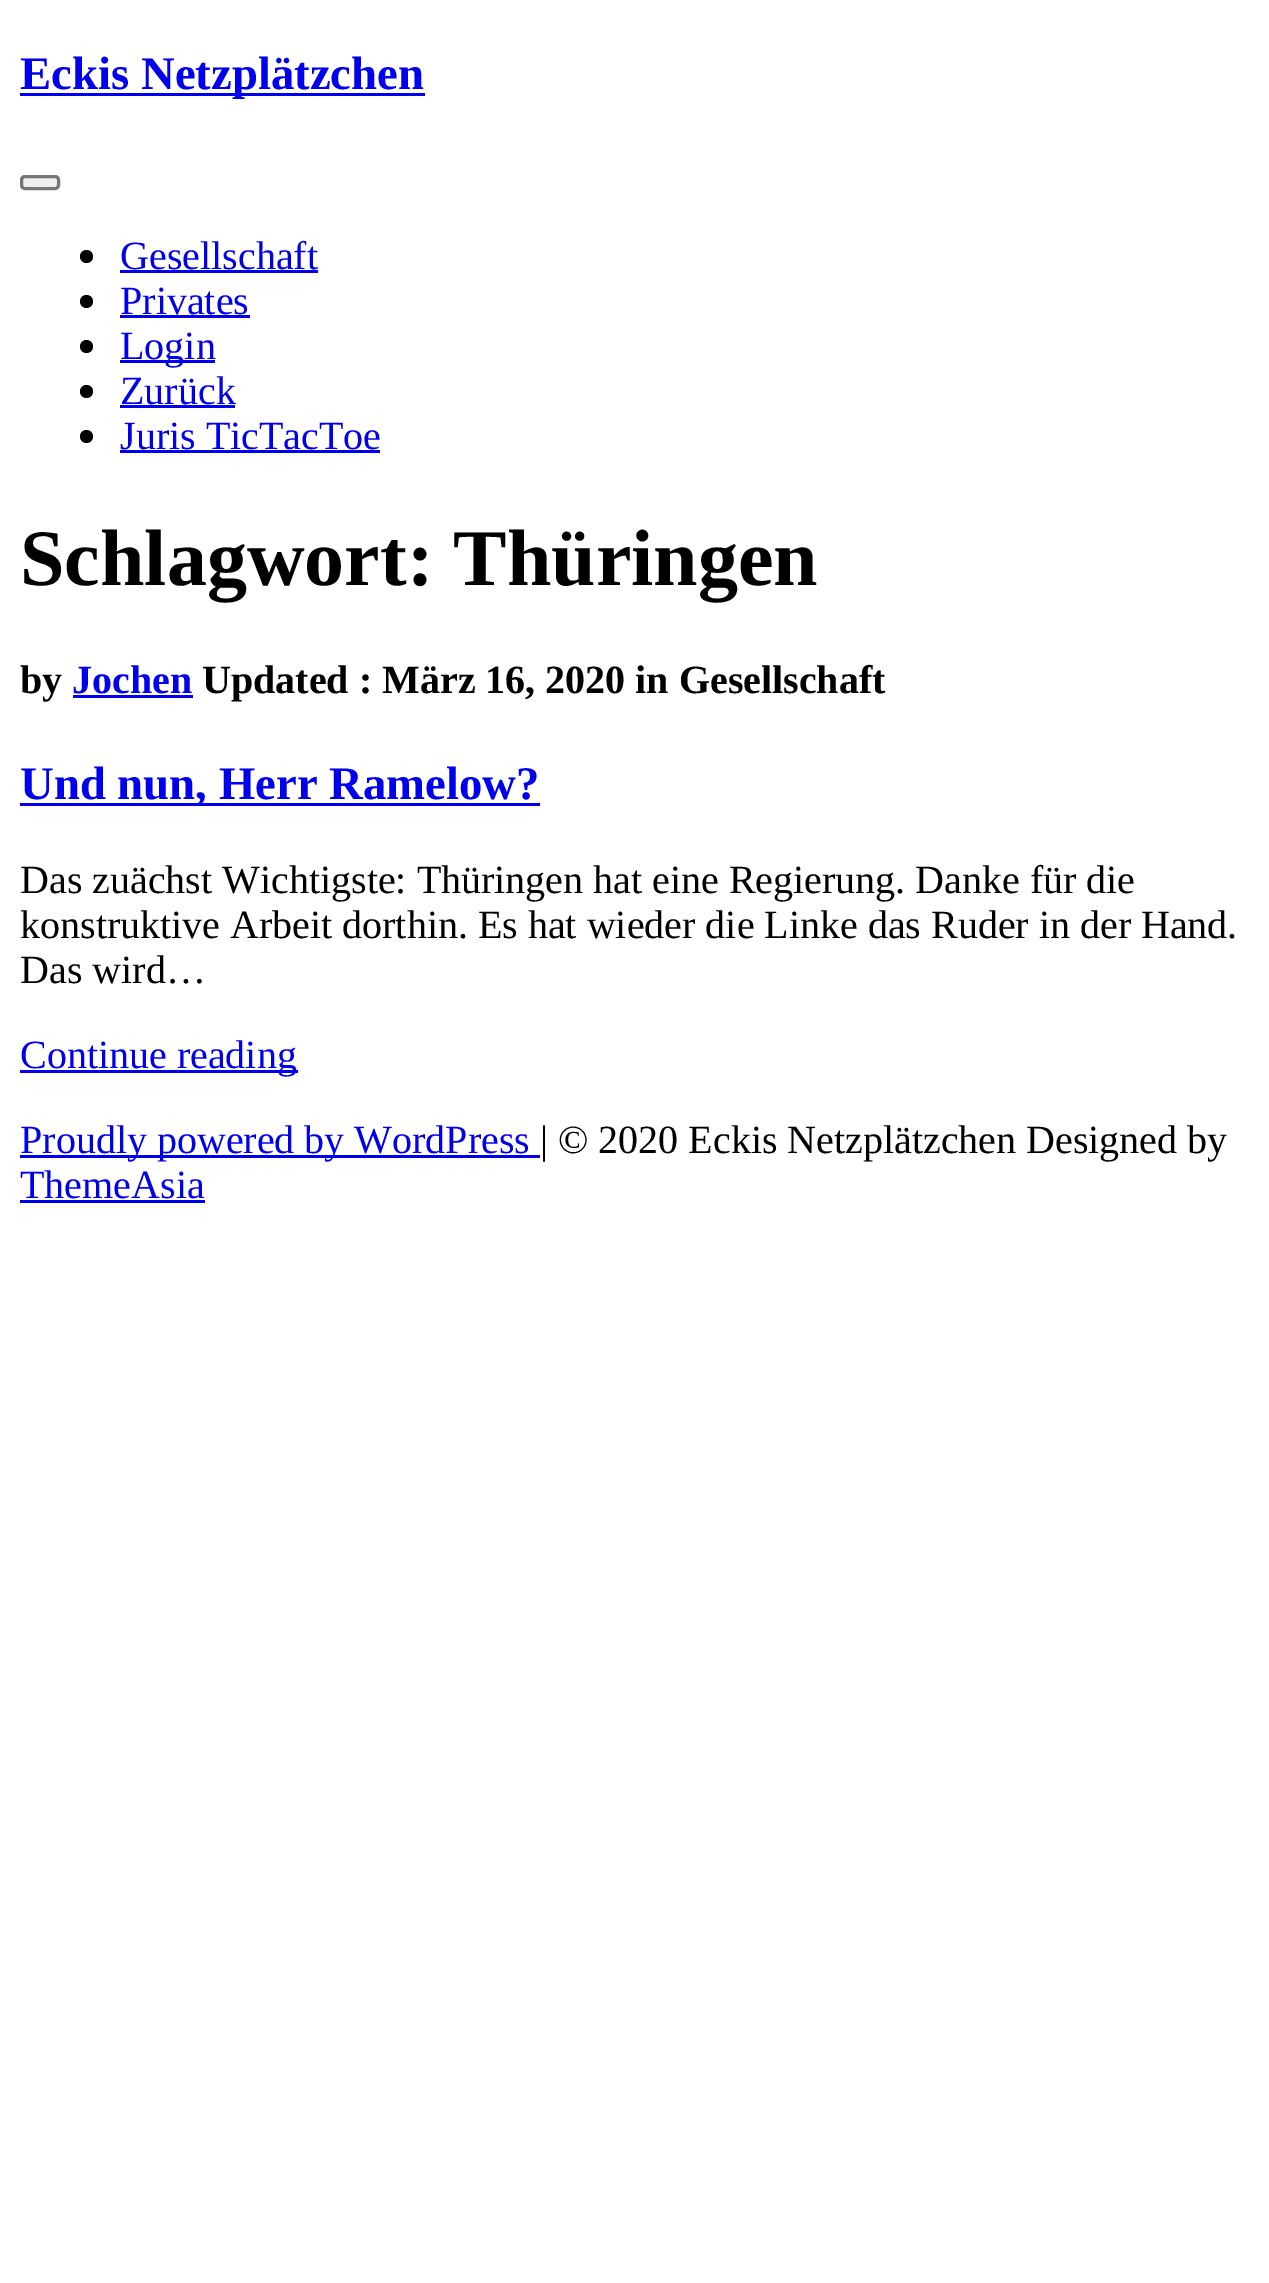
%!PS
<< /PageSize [1269 2283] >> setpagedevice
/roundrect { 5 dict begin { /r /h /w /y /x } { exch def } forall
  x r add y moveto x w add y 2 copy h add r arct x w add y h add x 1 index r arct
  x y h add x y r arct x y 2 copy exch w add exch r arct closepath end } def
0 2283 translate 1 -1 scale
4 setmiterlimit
1 setgray
0 0 1269 2283 rectfill
0 0 0.933 setrgbcolor
20 93 405 3 rectfill
/LiberationSerif-Bold [46.75 0 0 -46.75 0 0] selectfont
20 89 moveto (Eckis Netzplätzchen) show
0.937 setgray
21.5 176.5 37 12 3.5 roundrect gsave fill grestore
0.463 setgray
3 setlinewidth
stroke
0 setgray
newpath 86.5 256.5 6.5 0 360 arc closepath fill
/LiberationSerif-Regular [40 0 0 -40 0 0] selectfont
0 0 0.933 setrgbcolor
120 269 moveto (Gesellschaft) show
120 270 198 3 rectfill
0 setgray
newpath 86.5 301.5 6.5 0 360 arc closepath fill
0 0 0.933 setrgbcolor
120 314 moveto (Privates) show
120 315 130 3 rectfill
0 setgray
newpath 86.5 346.5 6.5 0 360 arc closepath fill
0 0 0.933 setrgbcolor
120 360 95 3 rectfill
120 359 moveto (Login) show
0 setgray
newpath 86.5 391.5 6.5 0 360 arc closepath fill
0 0 0.933 setrgbcolor
120 404 moveto (Zurück) show
120 405 115 3 rectfill
0 setgray
newpath 86.5 436.5 6.5 0 360 arc closepath fill
0 0 0.933 setrgbcolor
120 449 moveto (Juris TicTacToe) show
120 450 260 3 rectfill
/LiberationSerif-Bold [80 0 0 -80 0 0] selectfont
0 setgray
20 585 moveto (Schlagwort: Thüringen) show
/LiberationSerif-Bold [40 0 0 -40 0 0] selectfont
20 693 moveto (by) show
0 0 0.933 setrgbcolor
72 693 moveto (Jochen) show
73 695 120 3 rectfill
0 setgray
202 693 moveto (Updated : März 16, 2020 in Gesellschaft) show
0 0 0.933 setrgbcolor
20 803 520 3 rectfill
/LiberationSerif-Bold [46.75 0 0 -46.75 0 0] selectfont
20 799 moveto (Und nun, Herr Ramelow?) show
/LiberationSerif-Regular [40 0 0 -40 0 0] selectfont
0 setgray
20 893 moveto (Das zuächst Wichtigste: Thüringen hat eine Regierung. Danke für die) show
20 938 moveto (konstruktive Arbeit dorthin. Es hat wieder die Linke das Ruder in der Hand.) show
20 983 moveto (Das wird…) show
0 0 0.933 setrgbcolor
20 1070 278 3 rectfill
20 1068 moveto (Continue reading) show
20 1155 520 3 rectfill
20 1153 moveto (Proudly powered by WordPress) show
0 setgray
540 1153 moveto (| © 2020 Eckis Netzplätzchen Designed by) show
0 0 0.933 setrgbcolor
20 1198 moveto (ThemeAsia) show
20 1200 185 3 rectfill
showpage
